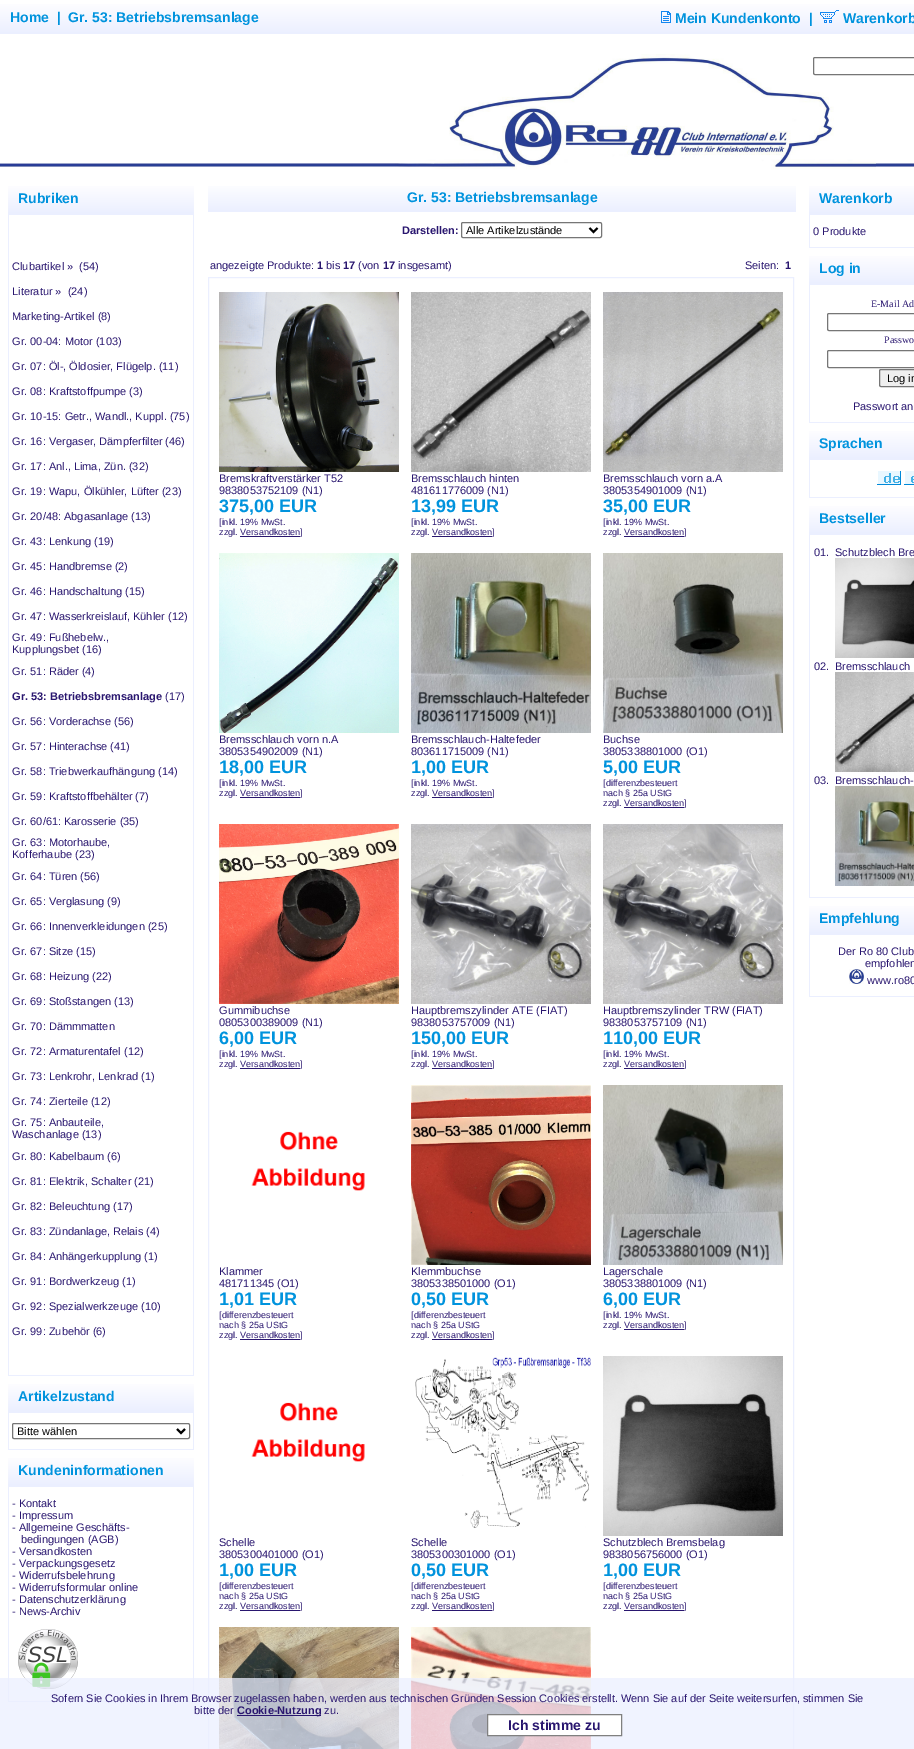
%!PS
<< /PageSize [914 1749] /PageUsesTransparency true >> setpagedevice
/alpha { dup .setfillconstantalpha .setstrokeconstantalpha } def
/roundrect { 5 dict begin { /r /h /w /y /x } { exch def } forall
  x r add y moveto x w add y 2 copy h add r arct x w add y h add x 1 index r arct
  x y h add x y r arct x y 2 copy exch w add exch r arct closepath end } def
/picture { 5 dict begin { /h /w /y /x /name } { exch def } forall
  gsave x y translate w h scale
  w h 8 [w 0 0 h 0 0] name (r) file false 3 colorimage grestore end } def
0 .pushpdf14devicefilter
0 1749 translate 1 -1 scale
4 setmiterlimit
1 setgray
0 0 914 1749 rectfill
gsave newpath 0 4 moveto 434 4 lineto 434 34 lineto 0 34 lineto closepath clip newpath
<< /ShadingType 2 /ColorSpace /DeviceRGB /Coords [0 0 0 34] /Extend [true true] /Function << /FunctionType 2 /Domain [0 1] /C0 [1 1 1] /C1 [0.922 0.937 1] /N 1 >> >> shfill grestore
/LiberationSans-Bold [14 0 0 -14 0 0] selectfont
0 0.576 0.867 setrgbcolor
10 22 moveto (Home) show
57 22 moveto (|) show
68 22 moveto (Gr. 53: Betriebsbremsanlage) show
gsave newpath 434 4 moveto 914 4 lineto 914 34 lineto 434 34 lineto closepath clip newpath
<< /ShadingType 2 /ColorSpace /DeviceRGB /Coords [434 0 434 34] /Extend [true true] /Function << /FunctionType 2 /Domain [0 1] /C0 [1 1 1] /C1 [0.922 0.937 1] /N 1 >> >> shfill grestore
(img1.rgb) 661 11 10 12 picture
675 23 moveto (Mein Kundenkonto) show
809 23 moveto (|) show
(img2.rgb) 820 10 19 13 picture
843 23 moveto (Warenkorb) show
(img3.rgb) 0 54 914 116 picture
0.463 setgray
813.5 57.5 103 17 1.5 roundrect stroke
gsave newpath 8 186 moveto 194 186 lineto 194 214 lineto 8 214 lineto closepath clip newpath
<< /ShadingType 2 /ColorSpace /DeviceRGB /Coords [8 182 8 214] /Extend [true true] /Function << /FunctionType 2 /Domain [0 1] /C0 [1 1 1] /C1 [0.922 0.937 1] /N 1 >> >> shfill grestore
0 0.576 0.867 setrgbcolor
18 203 moveto (Rubriken) show
0.922 0.937 1 setrgbcolor
8 214 186 1162 rectfill
1 setgray
9 215 184 1160 rectfill
/LiberationSans-Regular [11 0 0 -11 0 0] selectfont
0.161 0.086 0.435 setrgbcolor
12 270 moveto (Clubartikel »  \(54\)) show
12 295 moveto (Literatur »  \(24\)) show
12 320 moveto (Marketing-Artikel \(8\)) show
12 345 moveto (Gr. 00-04: Motor \(103\)) show
12 370 moveto (Gr. 07: Öl-, Öldosier, Flügelp. \(11\)) show
12 395 moveto (Gr. 08: Kraftstoffpumpe \(3\)) show
12 420 moveto (Gr. 10-15: Getr., Wandl., Kuppl. \(75\)) show
12 445 moveto (Gr. 16: Vergaser, Dämpferfilter \(46\)) show
12 470 moveto (Gr. 17: Anl., Lima, Zün. \(32\)) show
12 495 moveto (Gr. 19: Wapu, Ölkühler, Lüfter \(23\)) show
12 520 moveto (Gr. 20/48: Abgasanlage \(13\)) show
12 545 moveto (Gr. 43: Lenkung \(19\)) show
12 570 moveto (Gr. 45: Handbremse \(2\)) show
12 595 moveto (Gr. 46: Handschaltung \(15\)) show
12 620 moveto (Gr. 47: Wasserkreislauf, Kühler \(12\)) show
12 641 moveto (Gr. 49: Fußhebelw.,) show
12 653 moveto (Kupplungsbet \(16\)) show
12 675 moveto (Gr. 51: Räder \(4\)) show
/LiberationSans-Bold [11 0 0 -11 0 0] selectfont
12 700 moveto (Gr. 53: Betriebsbremsanlage) show
/LiberationSans-Regular [11 0 0 -11 0 0] selectfont
165 700 moveto (\(17\)) show
12 725 moveto (Gr. 56: Vorderachse \(56\)) show
12 750 moveto (Gr. 57: Hinterachse \(41\)) show
12 775 moveto (Gr. 58: Triebwerkaufhängung \(14\)) show
12 800 moveto (Gr. 59: Kraftstoffbehälter \(7\)) show
12 825 moveto (Gr. 60/61: Karosserie \(35\)) show
12 846 moveto (Gr. 63: Motorhaube,) show
12 858 moveto (Kofferhaube \(23\)) show
12 880 moveto (Gr. 64: Türen \(56\)) show
12 905 moveto (Gr. 65: Verglasung \(9\)) show
12 930 moveto (Gr. 66: Innenverkleidungen \(25\)) show
12 955 moveto (Gr. 67: Sitze \(15\)) show
12 980 moveto (Gr. 68: Heizung \(22\)) show
12 1005 moveto (Gr. 69: Stoßstangen \(13\)) show
12 1030 moveto (Gr. 70: Dämmmatten) show
12 1055 moveto (Gr. 72: Armaturentafel \(12\)) show
12 1080 moveto (Gr. 73: Lenkrohr, Lenkrad \(1\)) show
12 1105 moveto (Gr. 74: Zierteile \(12\)) show
12 1126 moveto (Gr. 75: Anbauteile,) show
12 1138 moveto (Waschanlage \(13\)) show
12 1160 moveto (Gr. 80: Kabelbaum \(6\)) show
12 1185 moveto (Gr. 81: Elektrik, Schalter \(21\)) show
12 1210 moveto (Gr. 82: Beleuchtung \(17\)) show
12 1235 moveto (Gr. 83: Zündanlage, Relais \(4\)) show
12 1260 moveto (Gr. 84: Anhängerkupplung \(1\)) show
12 1285 moveto (Gr. 91: Bordwerkzeug \(1\)) show
12 1310 moveto (Gr. 92: Spezialwerkzeuge \(10\)) show
12 1335 moveto (Gr. 99: Zubehör \(6\)) show
gsave newpath 8 1384 moveto 194 1384 lineto 194 1412 lineto 8 1412 lineto closepath clip newpath
<< /ShadingType 2 /ColorSpace /DeviceRGB /Coords [8 1380 8 1412] /Extend [true true] /Function << /FunctionType 2 /Domain [0 1] /C0 [1 1 1] /C1 [0.922 0.937 1] /N 1 >> >> shfill grestore
/LiberationSans-Bold [14 0 0 -14 0 0] selectfont
0 0.576 0.867 setrgbcolor
18 1401 moveto (Artikelzustand) show
0.922 0.937 1 setrgbcolor
8 1412 186 38 rectfill
1 setgray
9 1413 184 36 rectfill
0.463 setgray
12.5 1423.5 177 15 1.5 roundrect stroke
0 setgray
2 setlinewidth
newpath 177 1429 moveto 181 1433 lineto 185 1429 lineto stroke
/LiberationSans-Regular [11 0 0 -11 0 0] selectfont
17 1435 moveto (Bitte wählen) show
gsave newpath 8 1458 moveto 194 1458 lineto 194 1486 lineto 8 1486 lineto closepath clip newpath
<< /ShadingType 2 /ColorSpace /DeviceRGB /Coords [8 1454 8 1486] /Extend [true true] /Function << /FunctionType 2 /Domain [0 1] /C0 [1 1 1] /C1 [0.922 0.937 1] /N 1 >> >> shfill grestore
/LiberationSans-Bold [14 0 0 -14 0 0] selectfont
0 0.576 0.867 setrgbcolor
18 1475 moveto (Kundeninformationen) show
0.922 0.937 1 setrgbcolor
8 1486 186 216 rectfill
1 setgray
9 1487 184 214 rectfill
/LiberationSans-Regular [11 0 0 -11 0 0] selectfont
0.161 0.086 0.435 setrgbcolor
12 1507 moveto (- Kontakt) show
12 1519 moveto (- Impressum) show
12 1531 moveto (- Allgemeine Geschäfts-) show
21 1543 moveto (bedingungen \(AGB\)) show
12 1555 moveto (- Versandkosten) show
12 1567 moveto (- Verpackungsgesetz) show
12 1579 moveto (- Widerrufsbelehrung) show
12 1591 moveto (- Widerrufsformular online) show
12 1603 moveto (- Datenschutzerklärung) show
12 1615 moveto (- News-Archiv) show
(img4.rgb) 18 1629 60 60 picture
gsave newpath 208 186 moveto 796 186 lineto 796 212 lineto 208 212 lineto closepath clip newpath
<< /ShadingType 2 /ColorSpace /DeviceRGB /Coords [208 182 208 212] /Extend [true true] /Function << /FunctionType 2 /Domain [0 1] /C0 [1 1 1] /C1 [0.922 0.937 1] /N 1 >> >> shfill grestore
/LiberationSans-Bold [14 0 0 -14 0 0] selectfont
0 0.576 0.867 setrgbcolor
407 202 moveto (Gr. 53: Betriebsbremsanlage) show
/LiberationSans-Bold [11 0 0 -11 0 0] selectfont
0.161 0.086 0.435 setrgbcolor
402 234 moveto (Darstellen:) show
0.463 setgray
1 setlinewidth
461.5 222.5 140 15 1.5 roundrect stroke
0 setgray
2 setlinewidth
newpath 589.5 228 moveto 593.5 232 lineto 597.5 228 lineto stroke
/LiberationSans-Regular [11 0 0 -11 0 0] selectfont
466 234 moveto (Alle Artikelzustände) show
0.161 0.086 0.435 setrgbcolor
210 269 moveto (angezeigte Produkte:) show
/LiberationSans-Bold [11 0 0 -11 0 0] selectfont
317 269 moveto (1) show
/LiberationSans-Regular [11 0 0 -11 0 0] selectfont
326 269 moveto (bis) show
/LiberationSans-Bold [11 0 0 -11 0 0] selectfont
343 269 moveto (17) show
/LiberationSans-Regular [11 0 0 -11 0 0] selectfont
358 269 moveto (\(von) show
/LiberationSans-Bold [11 0 0 -11 0 0] selectfont
383 269 moveto (17) show
/LiberationSans-Regular [11 0 0 -11 0 0] selectfont
398 269 moveto (insgesamt\)) show
745 269 moveto (Seiten:) show
/LiberationSans-Bold [11 0 0 -11 0 0] selectfont
785 269 moveto (1) show
0.922 0.937 1 setrgbcolor
1 setlinewidth
208.5 277.5 585 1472 rectstroke
(img5.rgb) 219 292 180 180 picture
/LiberationSans-Regular [11 0 0 -11 0 0] selectfont
0.161 0.086 0.435 setrgbcolor
219 482 moveto (Bremskraftverstärker T52) show
219 494 moveto (9838053752109 \(N1\)) show
/LiberationSans-Bold [18 0 0 -18 0 0] selectfont
0 0.576 0.867 setrgbcolor
219 512 moveto (375,00 EUR) show
/LiberationSans-Regular [9 0 0 -9 0 0] selectfont
0.161 0.086 0.435 setrgbcolor
219 525 moveto ([inkl. 19% MwSt.) show
219 535 moveto (zzgl. Versandkosten) show
240 536 60 1 rectfill
300 535 moveto (]) show
(img6.rgb) 411 292 180 180 picture
/LiberationSans-Regular [11 0 0 -11 0 0] selectfont
411 482 moveto (Bremsschlauch hinten) show
411 494 moveto (481611776009 \(N1\)) show
/LiberationSans-Bold [18 0 0 -18 0 0] selectfont
0 0.576 0.867 setrgbcolor
411 512 moveto (13,99 EUR) show
/LiberationSans-Regular [9 0 0 -9 0 0] selectfont
0.161 0.086 0.435 setrgbcolor
411 525 moveto ([inkl. 19% MwSt.) show
411 535 moveto (zzgl. Versandkosten) show
432 536 60 1 rectfill
492 535 moveto (]) show
(img7.rgb) 603 292 180 180 picture
/LiberationSans-Regular [11 0 0 -11 0 0] selectfont
603 482 moveto (Bremsschlauch vorn a.A) show
603 494 moveto (3805354901009 \(N1\)) show
/LiberationSans-Bold [18 0 0 -18 0 0] selectfont
0 0.576 0.867 setrgbcolor
603 512 moveto (35,00 EUR) show
/LiberationSans-Regular [9 0 0 -9 0 0] selectfont
0.161 0.086 0.435 setrgbcolor
603 525 moveto ([inkl. 19% MwSt.) show
603 535 moveto (zzgl. Versandkosten) show
624 536 60 1 rectfill
684 535 moveto (]) show
(img8.rgb) 219 553 180 180 picture
/LiberationSans-Regular [11 0 0 -11 0 0] selectfont
219 743 moveto (Bremsschlauch vorn n.A) show
219 755 moveto (3805354902009 \(N1\)) show
/LiberationSans-Bold [18 0 0 -18 0 0] selectfont
0 0.576 0.867 setrgbcolor
219 773 moveto (18,00 EUR) show
/LiberationSans-Regular [9 0 0 -9 0 0] selectfont
0.161 0.086 0.435 setrgbcolor
219 786 moveto ([inkl. 19% MwSt.) show
219 796 moveto (zzgl. Versandkosten) show
240 797 60 1 rectfill
300 796 moveto (]) show
(img9.rgb) 411 553 180 180 picture
/LiberationSans-Regular [11 0 0 -11 0 0] selectfont
411 743 moveto (Bremsschlauch-Haltefeder) show
411 755 moveto (803611715009 \(N1\)) show
/LiberationSans-Bold [18 0 0 -18 0 0] selectfont
0 0.576 0.867 setrgbcolor
411 773 moveto (1,00 EUR) show
/LiberationSans-Regular [9 0 0 -9 0 0] selectfont
0.161 0.086 0.435 setrgbcolor
411 786 moveto ([inkl. 19% MwSt.) show
411 796 moveto (zzgl. Versandkosten) show
432 797 60 1 rectfill
492 796 moveto (]) show
(img10.rgb) 603 553 180 180 picture
/LiberationSans-Regular [11 0 0 -11 0 0] selectfont
603 743 moveto (Buchse) show
603 755 moveto (3805338801000 \(O1\)) show
/LiberationSans-Bold [18 0 0 -18 0 0] selectfont
0 0.576 0.867 setrgbcolor
603 773 moveto (5,00 EUR) show
/LiberationSans-Regular [9 0 0 -9 0 0] selectfont
0.161 0.086 0.435 setrgbcolor
603 786 moveto ([differenzbesteuert) show
603 796 moveto (nach § 25a UStG) show
603 806 moveto (zzgl. Versandkosten) show
624 807 60 1 rectfill
684 806 moveto (]) show
(img11.rgb) 219 824 180 180 picture
/LiberationSans-Regular [11 0 0 -11 0 0] selectfont
219 1014 moveto (Gummibuchse) show
219 1026 moveto (0805300389009 \(N1\)) show
/LiberationSans-Bold [18 0 0 -18 0 0] selectfont
0 0.576 0.867 setrgbcolor
219 1044 moveto (6,00 EUR) show
/LiberationSans-Regular [9 0 0 -9 0 0] selectfont
0.161 0.086 0.435 setrgbcolor
219 1057 moveto ([inkl. 19% MwSt.) show
219 1067 moveto (zzgl. Versandkosten) show
240 1068 60 1 rectfill
300 1067 moveto (]) show
(img12.rgb) 411 824 180 180 picture
/LiberationSans-Regular [11 0 0 -11 0 0] selectfont
411 1014 moveto (Hauptbremszylinder ATE \(FIAT\)) show
411 1026 moveto (9838053757009 \(N1\)) show
/LiberationSans-Bold [18 0 0 -18 0 0] selectfont
0 0.576 0.867 setrgbcolor
411 1044 moveto (150,00 EUR) show
/LiberationSans-Regular [9 0 0 -9 0 0] selectfont
0.161 0.086 0.435 setrgbcolor
411 1057 moveto ([inkl. 19% MwSt.) show
411 1067 moveto (zzgl. Versandkosten) show
432 1068 60 1 rectfill
492 1067 moveto (]) show
(img12.rgb) 603 824 180 180 picture
/LiberationSans-Regular [11 0 0 -11 0 0] selectfont
603 1014 moveto (Hauptbremszylinder TRW \(FIAT\)) show
603 1026 moveto (9838053757109 \(N1\)) show
/LiberationSans-Bold [18 0 0 -18 0 0] selectfont
0 0.576 0.867 setrgbcolor
603 1044 moveto (110,00 EUR) show
/LiberationSans-Regular [9 0 0 -9 0 0] selectfont
0.161 0.086 0.435 setrgbcolor
603 1057 moveto ([inkl. 19% MwSt.) show
603 1067 moveto (zzgl. Versandkosten) show
624 1068 60 1 rectfill
684 1067 moveto (]) show
(img13.rgb) 251 1131 114 60 picture
/LiberationSans-Regular [11 0 0 -11 0 0] selectfont
219 1275 moveto (Klammer) show
219 1287 moveto (481711345 \(O1\)) show
/LiberationSans-Bold [18 0 0 -18 0 0] selectfont
0 0.576 0.867 setrgbcolor
219 1305 moveto (1,01 EUR) show
/LiberationSans-Regular [9 0 0 -9 0 0] selectfont
0.161 0.086 0.435 setrgbcolor
219 1318 moveto ([differenzbesteuert) show
219 1328 moveto (nach § 25a UStG) show
219 1338 moveto (zzgl. Versandkosten) show
240 1339 60 1 rectfill
300 1338 moveto (]) show
(img14.rgb) 411 1085 180 180 picture
/LiberationSans-Regular [11 0 0 -11 0 0] selectfont
411 1275 moveto (Klemmbuchse) show
411 1287 moveto (3805338501000 \(O1\)) show
/LiberationSans-Bold [18 0 0 -18 0 0] selectfont
0 0.576 0.867 setrgbcolor
411 1305 moveto (0,50 EUR) show
/LiberationSans-Regular [9 0 0 -9 0 0] selectfont
0.161 0.086 0.435 setrgbcolor
411 1318 moveto ([differenzbesteuert) show
411 1328 moveto (nach § 25a UStG) show
411 1338 moveto (zzgl. Versandkosten) show
432 1339 60 1 rectfill
492 1338 moveto (]) show
(img15.rgb) 603 1085 180 180 picture
/LiberationSans-Regular [11 0 0 -11 0 0] selectfont
603 1275 moveto (Lagerschale) show
603 1287 moveto (3805338801009 \(N1\)) show
/LiberationSans-Bold [18 0 0 -18 0 0] selectfont
0 0.576 0.867 setrgbcolor
603 1305 moveto (6,00 EUR) show
/LiberationSans-Regular [9 0 0 -9 0 0] selectfont
0.161 0.086 0.435 setrgbcolor
603 1318 moveto ([inkl. 19% MwSt.) show
603 1328 moveto (zzgl. Versandkosten) show
624 1329 60 1 rectfill
684 1328 moveto (]) show
(img13.rgb) 251 1402 114 60 picture
/LiberationSans-Regular [11 0 0 -11 0 0] selectfont
219 1546 moveto (Schelle) show
219 1558 moveto (3805300401000 \(O1\)) show
/LiberationSans-Bold [18 0 0 -18 0 0] selectfont
0 0.576 0.867 setrgbcolor
219 1576 moveto (1,00 EUR) show
/LiberationSans-Regular [9 0 0 -9 0 0] selectfont
0.161 0.086 0.435 setrgbcolor
219 1589 moveto ([differenzbesteuert) show
219 1599 moveto (nach § 25a UStG) show
219 1609 moveto (zzgl. Versandkosten) show
240 1610 60 1 rectfill
300 1609 moveto (]) show
(img16.rgb) 415 1357 176 171 picture
/LiberationSans-Regular [11 0 0 -11 0 0] selectfont
411 1546 moveto (Schelle) show
411 1558 moveto (3805300301000 \(O1\)) show
/LiberationSans-Bold [18 0 0 -18 0 0] selectfont
0 0.576 0.867 setrgbcolor
411 1576 moveto (0,50 EUR) show
/LiberationSans-Regular [9 0 0 -9 0 0] selectfont
0.161 0.086 0.435 setrgbcolor
411 1589 moveto ([differenzbesteuert) show
411 1599 moveto (nach § 25a UStG) show
411 1609 moveto (zzgl. Versandkosten) show
432 1610 60 1 rectfill
492 1609 moveto (]) show
(img17.rgb) 603 1356 180 180 picture
/LiberationSans-Regular [11 0 0 -11 0 0] selectfont
603 1546 moveto (Schutzblech Bremsbelag) show
603 1558 moveto (9838056756000 \(O1\)) show
/LiberationSans-Bold [18 0 0 -18 0 0] selectfont
0 0.576 0.867 setrgbcolor
603 1576 moveto (1,00 EUR) show
/LiberationSans-Regular [9 0 0 -9 0 0] selectfont
0.161 0.086 0.435 setrgbcolor
603 1589 moveto ([differenzbesteuert) show
603 1599 moveto (nach § 25a UStG) show
603 1609 moveto (zzgl. Versandkosten) show
624 1610 60 1 rectfill
684 1609 moveto (]) show
(img18.rgb) 219 1627 180 122 picture
(img19.rgb) 411 1627 180 122 picture
gsave newpath 809 186 moveto 914 186 lineto 914 214 lineto 809 214 lineto closepath clip newpath
<< /ShadingType 2 /ColorSpace /DeviceRGB /Coords [809 182 809 214] /Extend [true true] /Function << /FunctionType 2 /Domain [0 1] /C0 [1 1 1] /C1 [0.922 0.937 1] /N 1 >> >> shfill grestore
/LiberationSans-Bold [14 0 0 -14 0 0] selectfont
0 0.576 0.867 setrgbcolor
819 203 moveto (Warenkorb) show
0.922 0.937 1 setrgbcolor
809 214 105 34 rectfill
1 setgray
810 215 104 32 rectfill
/LiberationSans-Regular [11 0 0 -11 0 0] selectfont
0.161 0.086 0.435 setrgbcolor
813 235 moveto (0 Produkte) show
gsave newpath 809 256 moveto 914 256 lineto 914 284 lineto 809 284 lineto closepath clip newpath
<< /ShadingType 2 /ColorSpace /DeviceRGB /Coords [809 252 809 284] /Extend [true true] /Function << /FunctionType 2 /Domain [0 1] /C0 [1 1 1] /C1 [0.922 0.937 1] /N 1 >> >> shfill grestore
/LiberationSans-Bold [14 0 0 -14 0 0] selectfont
0 0.576 0.867 setrgbcolor
819 273 moveto (Log in) show
0.922 0.937 1 setrgbcolor
809 284 105 139 rectfill
1 setgray
810 285 104 137 rectfill
/LiberationSerif-Regular [10 0 0 -10 0 0] selectfont
0.161 0.086 0.435 setrgbcolor
871 307 moveto (E-Mail Ad) show
0.463 setgray
827.5 313.5 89 17 1.5 roundrect stroke
0.161 0.086 0.435 setrgbcolor
884 343 moveto (Passwo) show
0.463 setgray
827.5 350.5 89 17 1.5 roundrect stroke
0.937 setgray
879.5 369.5 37 17 1.5 roundrect gsave fill grestore
0.463 setgray
stroke
/LiberationSans-Regular [11 0 0 -11 0 0] selectfont
0 setgray
887 382 moveto (Log in) show
0.161 0.086 0.435 setrgbcolor
853 410 moveto (Passwort an) show
gsave newpath 809 431 moveto 914 431 lineto 914 459 lineto 809 459 lineto closepath clip newpath
<< /ShadingType 2 /ColorSpace /DeviceRGB /Coords [809 427 809 459] /Extend [true true] /Function << /FunctionType 2 /Domain [0 1] /C0 [1 1 1] /C1 [0.922 0.937 1] /N 1 >> >> shfill grestore
/LiberationSans-Bold [14 0 0 -14 0 0] selectfont
0 0.576 0.867 setrgbcolor
819 448 moveto (Sprachen) show
0.922 0.937 1 setrgbcolor
809 459 105 39 rectfill
1 setgray
810 460 104 37 rectfill
(img20.rgb) 877 471 24 14 picture
(img21.rgb) 904 471 10 14 picture
gsave newpath 809 506 moveto 914 506 lineto 914 534 lineto 809 534 lineto closepath clip newpath
<< /ShadingType 2 /ColorSpace /DeviceRGB /Coords [809 502 809 534] /Extend [true true] /Function << /FunctionType 2 /Domain [0 1] /C0 [1 1 1] /C1 [0.922 0.937 1] /N 1 >> >> shfill grestore
0 0.576 0.867 setrgbcolor
819 523 moveto (Bestseller) show
0.922 0.937 1 setrgbcolor
809 534 105 364 rectfill
1 setgray
810 535 104 362 rectfill
/LiberationSans-Regular [11 0 0 -11 0 0] selectfont
0.161 0.086 0.435 setrgbcolor
814 556 moveto (01.) show
835 556 moveto (Schutzblech Bre) show
(img22.rgb) 835 558 79 100 picture
814 670 moveto (02.) show
835 670 moveto (Bremsschlauch) show
(img23.rgb) 835 672 79 100 picture
814 784 moveto (03.) show
835 784 moveto (Bremsschlauch-) show
(img24.rgb) 835 786 79 100 picture
gsave newpath 809 906 moveto 914 906 lineto 914 934 lineto 809 934 lineto closepath clip newpath
<< /ShadingType 2 /ColorSpace /DeviceRGB /Coords [809 902 809 934] /Extend [true true] /Function << /FunctionType 2 /Domain [0 1] /C0 [1 1 1] /C1 [0.922 0.937 1] /N 1 >> >> shfill grestore
/LiberationSans-Bold [14 0 0 -14 0 0] selectfont
0 0.576 0.867 setrgbcolor
819 923 moveto (Empfehlung) show
0.922 0.937 1 setrgbcolor
809 934 105 63 rectfill
1 setgray
810 935 104 61 rectfill
/LiberationSans-Regular [11 0 0 -11 0 0] selectfont
0.161 0.086 0.435 setrgbcolor
838 955 moveto (Der Ro 80 Club) show
865 967 moveto (empfohlen) show
(img25.rgb) 849 969 15 15 picture
867 984 moveto (www.ro80) show
0.75 alpha
0.922 0.937 1 setrgbcolor
0 1678 914 71 rectfill
1 alpha
0.161 0.086 0.435 setrgbcolor
51 1702 moveto (Sofern Sie Cookies in Ihrem Browser zugelassen haben, werden aus technischen Gründen Session Cookies erstellt. Wenn Sie auf der Seite weitersurfen, stimmen Sie) show
194 1714 moveto (bitte der) show
237 1715 84 1 rectfill
/LiberationSans-Bold [11 0 0 -11 0 0] selectfont
237 1714 moveto (Cookie-Nutzung) show
/LiberationSans-Regular [11 0 0 -11 0 0] selectfont
324 1714 moveto (zu.) show
1 setgray
newpath 487.5 1714.5 moveto 621.5 1714.5 lineto 621.5 1735.5 lineto 487.5 1735.5 lineto closepath gsave fill grestore
0.502 setgray
stroke
/LiberationSans-Bold [14 0 0 -14 0 0] selectfont
0.161 0.086 0.435 setrgbcolor
508 1730 moveto (Ich stimme zu) show
.poppdf14devicefilter showpage
